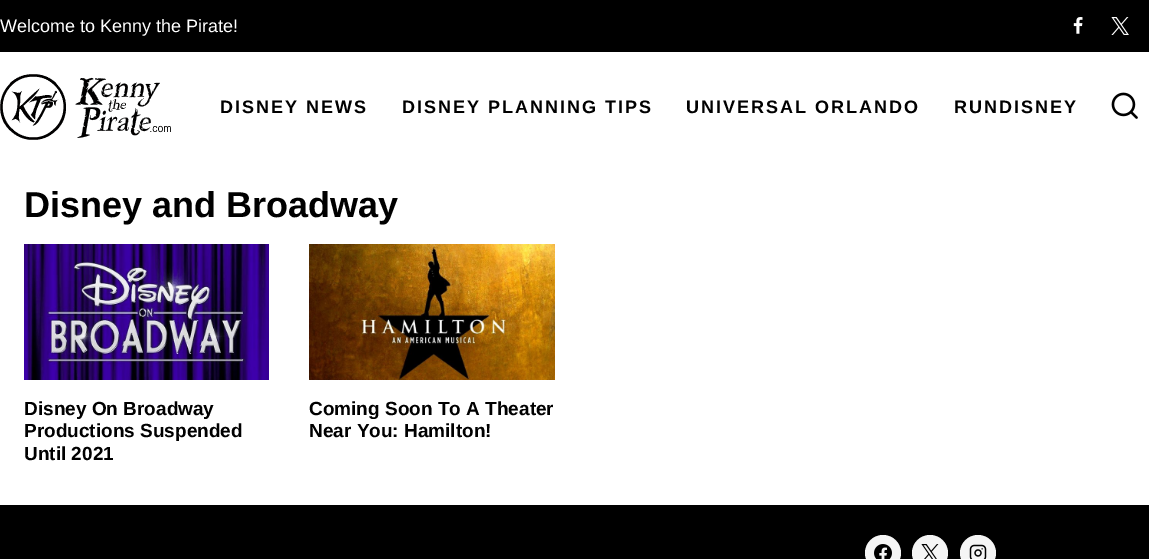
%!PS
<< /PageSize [1149 559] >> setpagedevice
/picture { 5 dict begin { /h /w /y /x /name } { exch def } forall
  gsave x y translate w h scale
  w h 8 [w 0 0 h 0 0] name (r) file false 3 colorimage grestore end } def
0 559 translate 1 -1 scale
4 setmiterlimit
1 setgray
0 0 1149 559 rectfill
0 setgray
0 0 1149 52 rectfill
/LiberationSans-Regular [18 0 0 -18 0 0] selectfont
1 setgray
0 32 moveto (Welcome to Kenny the Pirate!) show
(img1.rgb) 1073 17 10 17 picture
(img2.rgb) 1111 17 18 18 picture
(img3.rgb) 0 74 171 66 picture
/LiberationSans-Bold [18 0 0 -18 0 0] selectfont
0 setgray
220 113 moveto 2 0 (DISNEY NEWS) ashow
402 113 moveto 2 0 (DISNEY PLANNING TIPS) ashow
686 113 moveto 2 0 (UNIVERSAL ORLANDO) ashow
954 113 moveto 2 0 (RUNDISNEY) ashow
(img4.rgb) 1111 92 27 27 picture
/LiberationSans-Bold [36 0 0 -36 0 0] selectfont
24 217 moveto (Disney and Broadway) show
(img5.rgb) 24 244 245 136 picture
/LiberationSans-Bold [19 0 0 -19 0 0] selectfont
24 415 moveto (Disney On Broadway) show
24 437 moveto (Productions Suspended) show
24 460 moveto (Until 2021) show
(img6.rgb) 309 244 246 136 picture
309 415 moveto (Coming Soon To A Theater) show
309 437 moveto (Near You: Hamilton!) show
0 505 1149 54 rectfill
0.961 setgray
newpath 883 553 18 0 360 arc closepath fill
(img7.rgb) 874 544 18 15 picture
newpath 930 553 18 0 360 arc closepath fill
(img8.rgb) 921 544 18 15 picture
newpath 978 553 18 0 360 arc closepath fill
(img9.rgb) 969 544 18 15 picture
showpage
